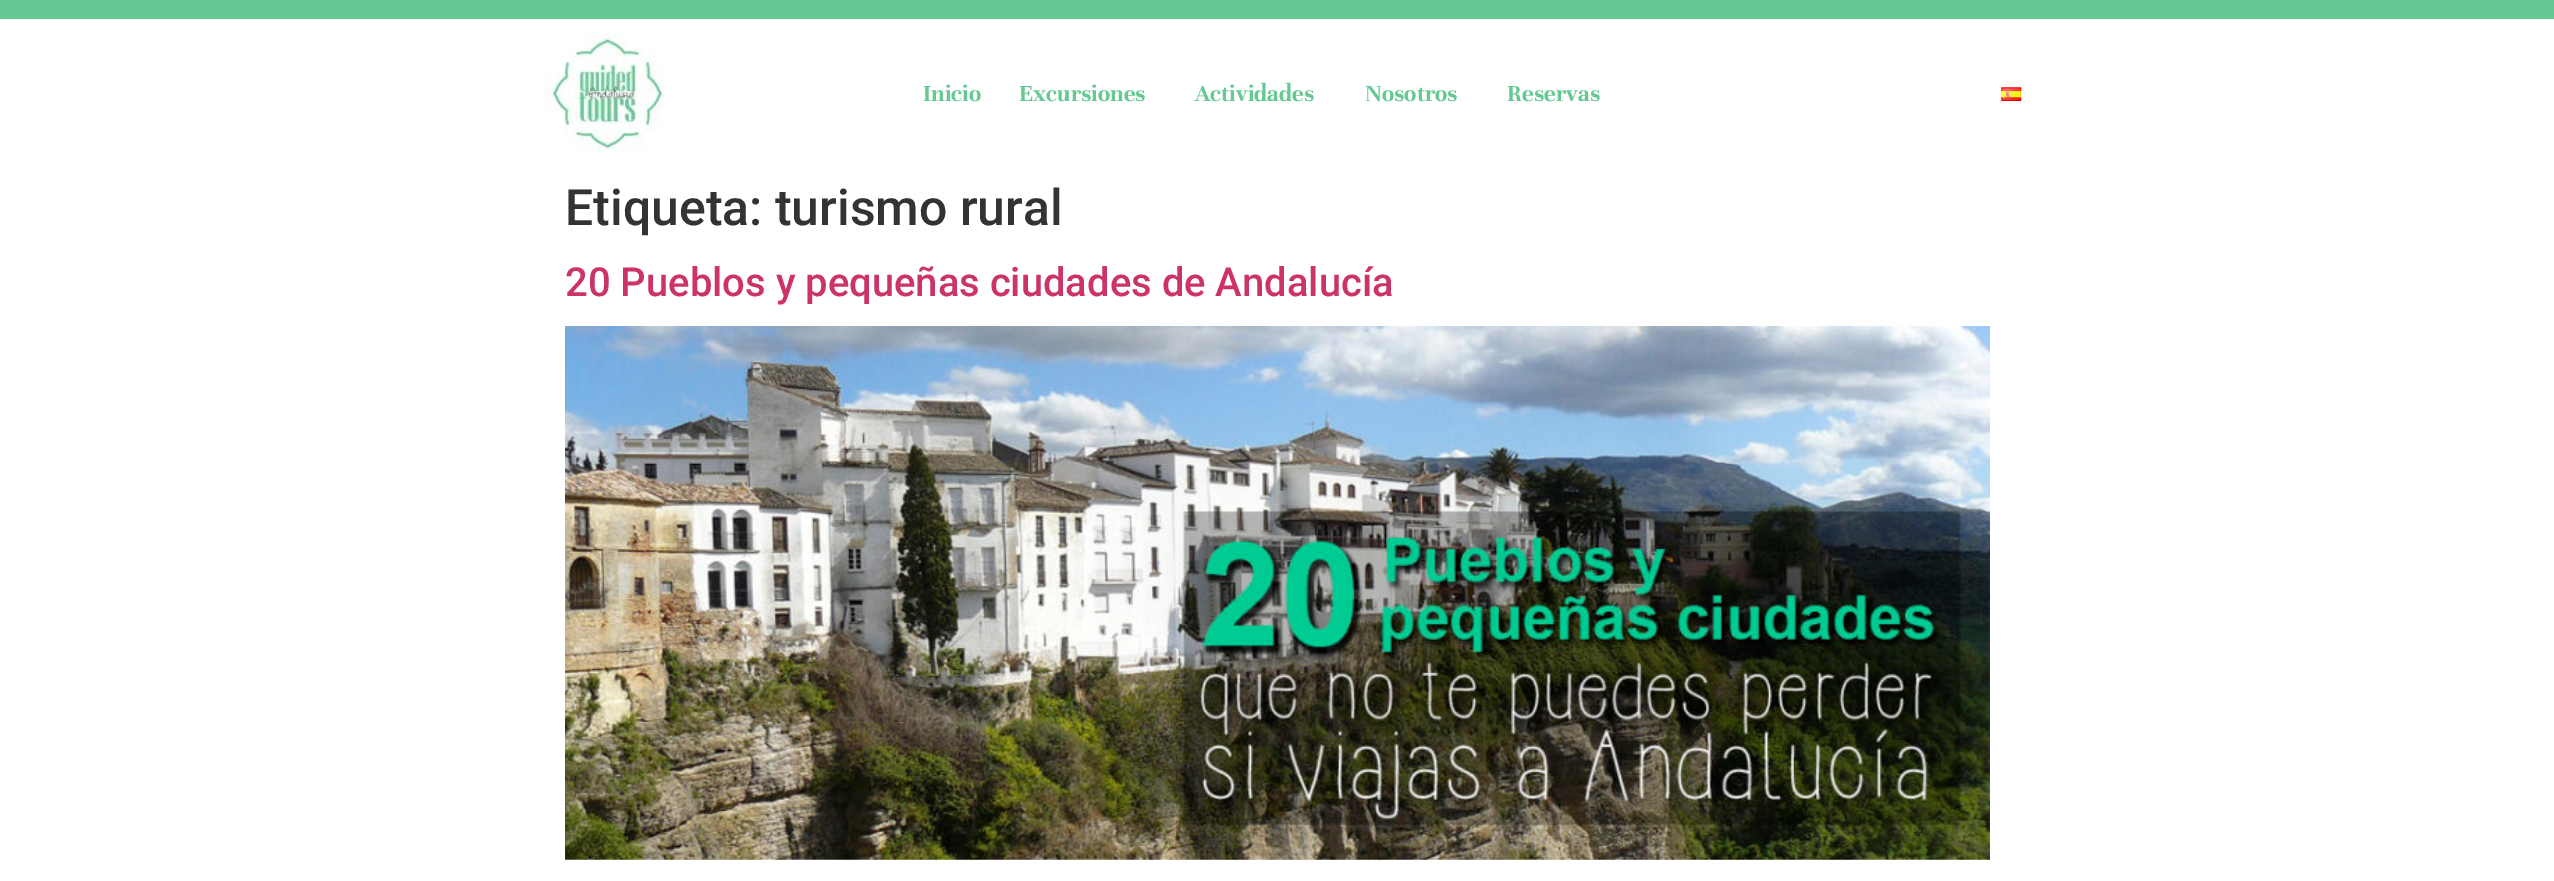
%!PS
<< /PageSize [2554 881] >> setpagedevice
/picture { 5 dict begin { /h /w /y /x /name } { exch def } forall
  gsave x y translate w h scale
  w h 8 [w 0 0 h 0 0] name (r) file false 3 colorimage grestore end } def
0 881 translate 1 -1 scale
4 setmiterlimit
1 setgray
0 0 2554 881 rectfill
0.4 0.788 0.576 setrgbcolor
0 0 2554 19 rectfill
(img1.rgb) 545 31 121 121 picture
/Unna-Bold [25 0 0 -25 0 0] selectfont
923 101 moveto (Inicio) show
1019 101 moveto (Excursiones) show
1195 101 moveto (Actividades) show
1365 101 moveto (Nosotros) show
1507 101 moveto (Reservas) show
(img2.rgb) 2001 87 21 14 picture
/Roboto-Medium [50 0 0 -50 0 0] selectfont
0.2 setgray
565 225 moveto (Etiqueta: turismo rural) show
/Roboto-Medium [40 0 0 -40 0 0] selectfont
0.8 0.2 0.4 setrgbcolor
565 296 moveto (20 Pueblos y pequeñas ciudades de Andalucía) show
(img3.rgb) 565 326 1425 534 picture
showpage
